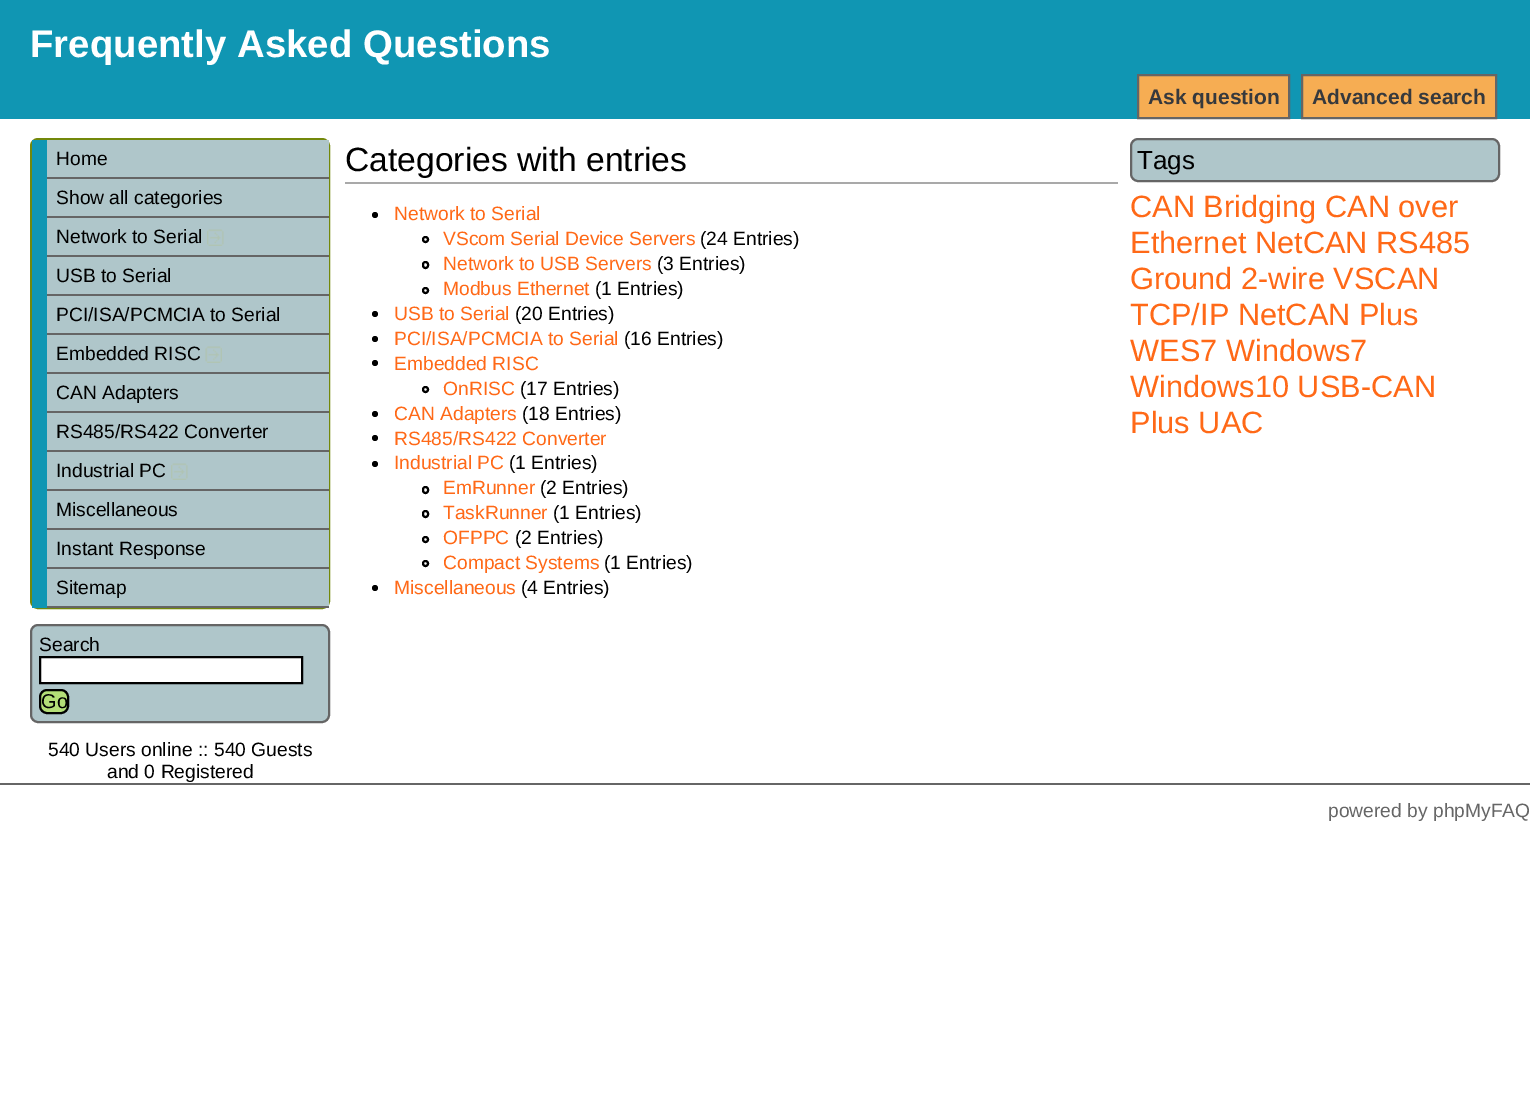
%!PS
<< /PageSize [1530 1118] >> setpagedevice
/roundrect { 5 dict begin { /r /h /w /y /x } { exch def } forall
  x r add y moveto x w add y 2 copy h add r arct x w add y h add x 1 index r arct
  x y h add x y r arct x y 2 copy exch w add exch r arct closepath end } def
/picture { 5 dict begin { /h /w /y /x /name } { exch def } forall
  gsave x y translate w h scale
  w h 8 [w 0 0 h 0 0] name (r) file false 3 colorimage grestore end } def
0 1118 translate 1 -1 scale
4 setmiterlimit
1 setgray
0 0 1530 1118 rectfill
0.063 0.588 0.702 setrgbcolor
0 0 1530 119 rectfill
/LiberationSans-Bold [38.4 0 0 -38.4 0 0] selectfont
1 setgray
30 57 moveto (Frequently Asked Questions) show
0.965 0.678 0.325 setrgbcolor
newpath 1138 75 moveto 1289 75 lineto 1289 118 lineto 1138 118 lineto closepath gsave fill grestore
0.396 setgray
2 setlinewidth
stroke
/LiberationSans-Bold [21 0 0 -21 0 0] selectfont
0.212 0.224 0.239 setrgbcolor
1148 104 moveto (Ask question) show
0.965 0.678 0.325 setrgbcolor
newpath 1302 75 moveto 1496 75 lineto 1496 118 lineto 1302 118 lineto closepath gsave fill grestore
0.396 setgray
stroke
0.212 0.224 0.239 setrgbcolor
1312 104 moveto (Advanced search) show
0.451 0.533 0.039 setrgbcolor
31 139 298 469 7 roundrect stroke
0.063 0.588 0.702 setrgbcolor
32 140 15 468 rectfill
0.686 0.776 0.792 setrgbcolor
47 140 282 37 rectfill
0.396 setgray
47 177 282 2 rectfill
/LiberationSans-Regular [19.25 0 0 -19.25 0 0] selectfont
0 setgray
56 165 moveto (Home) show
0.686 0.776 0.792 setrgbcolor
47 179 282 37 rectfill
0.396 setgray
47 216 282 2 rectfill
0 setgray
56 204 moveto (Show all categories) show
0.686 0.776 0.792 setrgbcolor
47 218 282 37 rectfill
0.396 setgray
47 255 282 2 rectfill
0 setgray
56 243 moveto (Network to Serial) show
(img1.rgb) 207 229 17 17 picture
0.686 0.776 0.792 setrgbcolor
47 257 282 37 rectfill
0.396 setgray
47 294 282 2 rectfill
0 setgray
56 282 moveto (USB to Serial) show
0.686 0.776 0.792 setrgbcolor
47 296 282 37 rectfill
0.396 setgray
47 333 282 2 rectfill
0 setgray
56 321 moveto (PCI/ISA/PCMCIA to Serial) show
0.686 0.776 0.792 setrgbcolor
47 335 282 37 rectfill
0.396 setgray
47 372 282 2 rectfill
0 setgray
56 360 moveto (Embedded RISC) show
(img2.rgb) 205 346 17 17 picture
0.686 0.776 0.792 setrgbcolor
47 374 282 37 rectfill
0.396 setgray
47 411 282 2 rectfill
0 setgray
56 399 moveto (CAN Adapters) show
0.686 0.776 0.792 setrgbcolor
47 413 282 37 rectfill
0.396 setgray
47 450 282 2 rectfill
0 setgray
56 438 moveto (RS485/RS422 Converter) show
0.686 0.776 0.792 setrgbcolor
47 452 282 37 rectfill
0.396 setgray
47 489 282 2 rectfill
0 setgray
56 477 moveto (Industrial PC) show
(img1.rgb) 171 463 17 17 picture
0.686 0.776 0.792 setrgbcolor
47 491 282 37 rectfill
0.396 setgray
47 528 282 2 rectfill
0 setgray
56 516 moveto (Miscellaneous) show
0.686 0.776 0.792 setrgbcolor
47 530 282 37 rectfill
0.396 setgray
47 567 282 2 rectfill
0 setgray
56 555 moveto (Instant Response) show
0.686 0.776 0.792 setrgbcolor
47 569 282 37 rectfill
0.396 setgray
47 606 282 2 rectfill
0 setgray
56 594 moveto (Sitemap) show
0.686 0.776 0.792 setrgbcolor
31 625 298 97 7 roundrect gsave fill grestore
0.396 setgray
stroke
0 setgray
39 651 moveto (Search) show
1 setgray
newpath 40 657 moveto 302 657 lineto 302 683 lineto 40 683 lineto closepath gsave fill grestore
0 setgray
stroke
0.702 0.871 0.467 setrgbcolor
40 690 28 23 7 roundrect gsave fill grestore
0 setgray
stroke
/LiberationSans-Regular [20 0 0 -20 0 0] selectfont
41 708 moveto (Go) show
/LiberationSans-Regular [19.25 0 0 -19.25 0 0] selectfont
48 756 moveto (540 Users online :: 540 Guests) show
107 778 moveto (and 0 Registered) show
0.663 setgray
345 182 773 2 rectfill
/LiberationSans-Regular [33.6 0 0 -33.6 0 0] selectfont
0 setgray
345 171 moveto (Categories with entries) show
newpath 375 215 3 0 360 arc closepath fill
/LiberationSans-Regular [19.25 0 0 -19.25 0 0] selectfont
1 0.412 0.09 setrgbcolor
394 220 moveto (Network to Serial) show
0 setgray
newpath 425.5 239.5 2.5 0 360 arc closepath stroke
1 0.412 0.09 setrgbcolor
443 245 moveto (VScom Serial Device Servers) show
0 setgray
700 245 moveto (\(24 Entries\)) show
423 262 5 6 2.5 roundrect stroke
1 0.412 0.09 setrgbcolor
443 270 moveto (Network to USB Servers) show
0 setgray
657 270 moveto (\(3 Entries\)) show
newpath 425.5 290.5 2.5 0 360 arc closepath stroke
1 0.412 0.09 setrgbcolor
443 295 moveto (Modbus Ethernet) show
0 setgray
595 295 moveto (\(1 Entries\)) show
newpath 375 314 3 0 360 arc closepath fill
1 0.412 0.09 setrgbcolor
394 320 moveto (USB to Serial) show
0 setgray
515 320 moveto (\(20 Entries\)) show
newpath 375 339 3 0 360 arc closepath fill
1 0.412 0.09 setrgbcolor
394 345 moveto (PCI/ISA/PCMCIA to Serial) show
0 setgray
624 345 moveto (\(16 Entries\)) show
newpath 375 363 3 0 360 arc closepath fill
1 0.412 0.09 setrgbcolor
394 370 moveto (Embedded RISC) show
0 setgray
newpath 425.5 389.5 2.5 0 360 arc closepath stroke
1 0.412 0.09 setrgbcolor
443 395 moveto (OnRISC) show
0 setgray
520 395 moveto (\(17 Entries\)) show
newpath 375 414 3 0 360 arc closepath fill
1 0.412 0.09 setrgbcolor
394 420 moveto (CAN Adapters) show
0 setgray
522 420 moveto (\(18 Entries\)) show
newpath 375 438 3 0 360 arc closepath fill
1 0.412 0.09 setrgbcolor
394 445 moveto (RS485/RS422 Converter) show
0 setgray
newpath 375 464 3 0 360 arc closepath fill
1 0.412 0.09 setrgbcolor
394 469 moveto (Industrial PC) show
0 setgray
509 469 moveto (\(1 Entries\)) show
423 487 5 6 2.5 roundrect stroke
1 0.412 0.09 setrgbcolor
443 494 moveto (EmRunner) show
0 setgray
540 494 moveto (\(2 Entries\)) show
423 511 5 6 2.5 roundrect stroke
1 0.412 0.09 setrgbcolor
443 519 moveto (TaskRunner) show
0 setgray
553 519 moveto (\(1 Entries\)) show
newpath 425.5 539.5 2.5 0 360 arc closepath stroke
1 0.412 0.09 setrgbcolor
443 544 moveto (OFPPC) show
0 setgray
515 544 moveto (\(2 Entries\)) show
newpath 425.5 563.5 2.5 0 360 arc closepath stroke
1 0.412 0.09 setrgbcolor
443 569 moveto (Compact Systems) show
0 setgray
604 569 moveto (\(1 Entries\)) show
newpath 375 588 3 0 360 arc closepath fill
1 0.412 0.09 setrgbcolor
394 594 moveto (Miscellaneous) show
0 setgray
521 594 moveto (\(4 Entries\)) show
0.686 0.776 0.792 setrgbcolor
1131 139 368 42 7 roundrect gsave fill grestore
0.396 setgray
stroke
/LiberationSans-Regular [26 0 0 -26 0 0] selectfont
0 setgray
1137 169 moveto (Tags) show
/LiberationSans-Regular [30.75 0 0 -30.75 0 0] selectfont
1 0.412 0.09 setrgbcolor
1130 217 moveto (CAN Bridging CAN over) show
1130 253 moveto (Ethernet NetCAN RS485) show
1130 289 moveto (Ground 2-wire VSCAN) show
1130 325 moveto (TCP/IP NetCAN Plus) show
1130 361 moveto (WES7 Windows7) show
1130 397 moveto (Windows10 USB-CAN) show
1130 433 moveto (Plus UAC) show
0.4 setgray
0 783 1530 2 rectfill
/LiberationSans-Regular [19.25 0 0 -19.25 0 0] selectfont
1328 817 moveto (powered by phpMyFAQ) show
showpage
